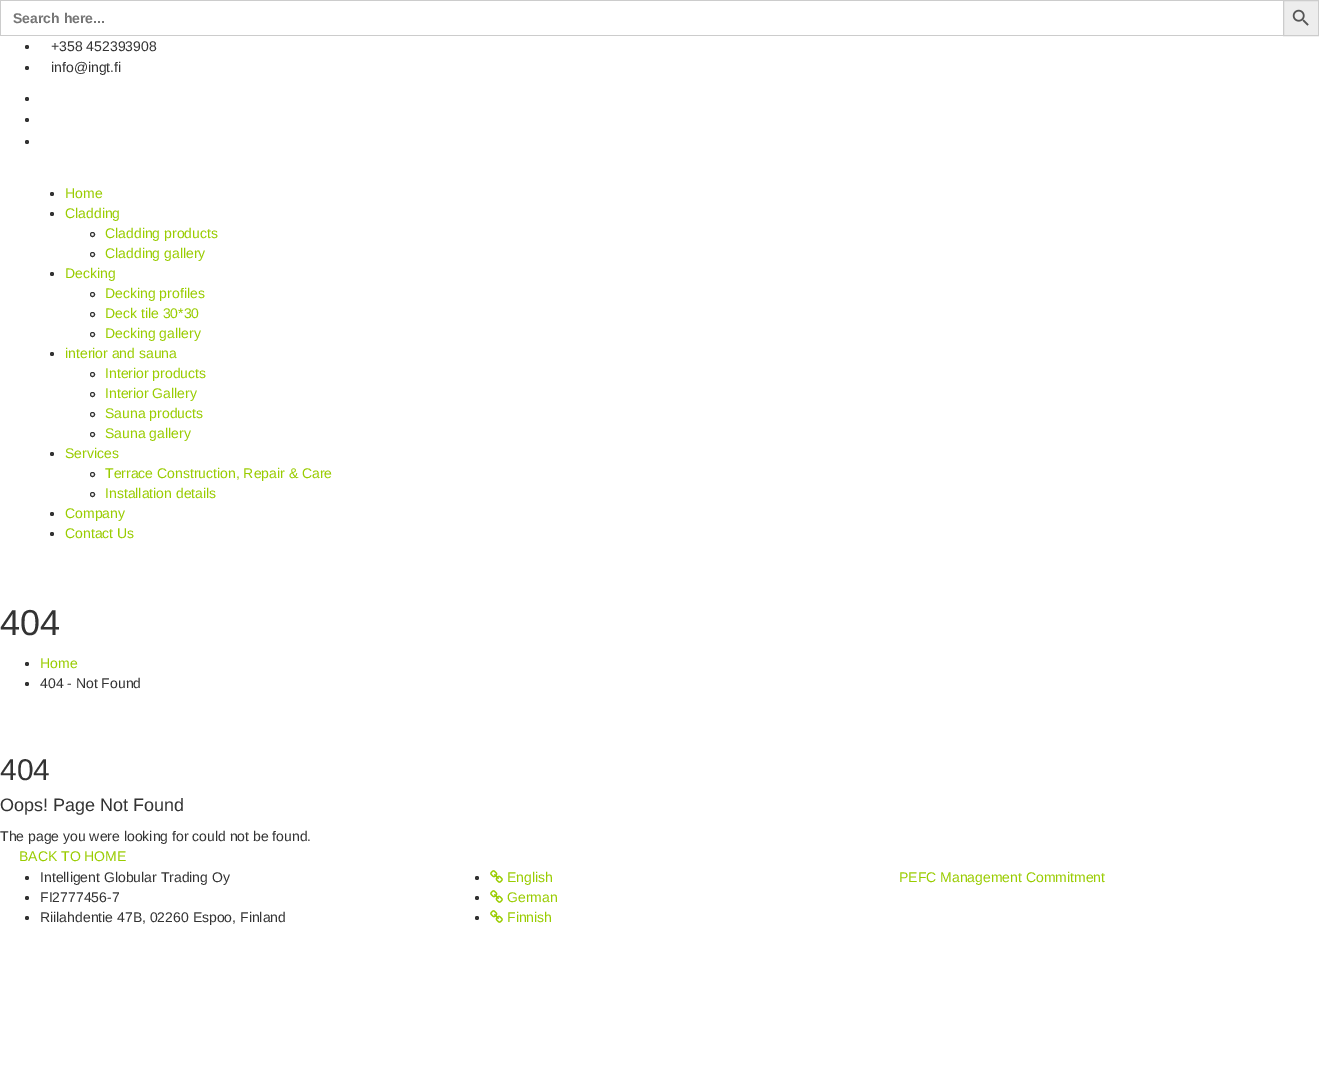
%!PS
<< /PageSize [1319 1071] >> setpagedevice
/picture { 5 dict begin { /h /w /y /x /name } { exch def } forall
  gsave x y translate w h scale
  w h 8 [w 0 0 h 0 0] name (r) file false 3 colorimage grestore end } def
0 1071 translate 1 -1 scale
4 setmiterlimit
1 setgray
0 0 1319 1071 rectfill
0.8 setgray
0 0 1283 1 rectfill
0 35 1283 1 rectfill
0 0 1 36 rectfill
/LiberationSans-Bold [14 0 0 -14 0 0] selectfont
0.459 setgray
13 23 moveto (Search here...) show
0.929 setgray
newpath 1283.5 0.5 moveto 1318.5 0.5 lineto 1318.5 35.5 lineto 1283.5 35.5 lineto closepath gsave fill grestore
0.8 setgray
stroke
(img1.rgb) 1292 9 17 17 picture
0.2 setgray
newpath 27 47 2 0 360 arc closepath fill
/LiberationSans-Regular [14 0 0 -14 0 0] selectfont
51 51 moveto (+358 452393908) show
newpath 27 68 2 0 360 arc closepath fill
51 72 moveto (info@ingt.fi) show
newpath 27 99 2 0 360 arc closepath fill
newpath 27 120 2 0 360 arc closepath fill
newpath 27 142 2 0 360 arc closepath fill
newpath 52 194 2 0 360 arc closepath fill
0.6 0.8 0 setrgbcolor
65 198 moveto (Home) show
0.2 setgray
newpath 52 214 2 0 360 arc closepath fill
0.6 0.8 0 setrgbcolor
65 218 moveto (Cladding) show
0.2 setgray
newpath 92.5 234.5 2 0 360 arc closepath stroke
0.6 0.8 0 setrgbcolor
105 238 moveto (Cladding products) show
0.2 setgray
newpath 92.5 254.5 2 0 360 arc closepath stroke
0.6 0.8 0 setrgbcolor
105 258 moveto (Cladding gallery) show
0.2 setgray
newpath 52 274 2 0 360 arc closepath fill
0.6 0.8 0 setrgbcolor
65 278 moveto (Decking) show
0.2 setgray
newpath 92.5 294.5 2 0 360 arc closepath stroke
0.6 0.8 0 setrgbcolor
105 298 moveto (Decking profiles) show
0.2 setgray
newpath 92.5 314.5 2 0 360 arc closepath stroke
0.6 0.8 0 setrgbcolor
105 318 moveto (Deck tile 30*30) show
0.2 setgray
newpath 92.5 334.5 2 0 360 arc closepath stroke
0.6 0.8 0 setrgbcolor
105 338 moveto (Decking gallery) show
0.2 setgray
newpath 52 354 2 0 360 arc closepath fill
0.6 0.8 0 setrgbcolor
65 358 moveto (interior and sauna) show
0.2 setgray
newpath 92.5 374.5 2 0 360 arc closepath stroke
0.6 0.8 0 setrgbcolor
105 378 moveto (Interior products) show
0.2 setgray
newpath 92.5 394.5 2 0 360 arc closepath stroke
0.6 0.8 0 setrgbcolor
105 398 moveto (Interior Gallery) show
0.2 setgray
newpath 92.5 414.5 2 0 360 arc closepath stroke
0.6 0.8 0 setrgbcolor
105 418 moveto (Sauna products) show
0.2 setgray
newpath 92.5 434.5 2 0 360 arc closepath stroke
0.6 0.8 0 setrgbcolor
105 438 moveto (Sauna gallery) show
0.2 setgray
newpath 52 454 2 0 360 arc closepath fill
0.6 0.8 0 setrgbcolor
65 458 moveto (Services) show
0.2 setgray
newpath 92.5 474.5 2 0 360 arc closepath stroke
0.6 0.8 0 setrgbcolor
105 478 moveto (Terrace Construction, Repair & Care) show
0.2 setgray
newpath 92.5 494.5 2 0 360 arc closepath stroke
0.6 0.8 0 setrgbcolor
105 498 moveto (Installation details) show
0.2 setgray
newpath 52 514 2 0 360 arc closepath fill
0.6 0.8 0 setrgbcolor
65 518 moveto (Company) show
0.2 setgray
newpath 52 534 2 0 360 arc closepath fill
0.6 0.8 0 setrgbcolor
65 538 moveto (Contact Us) show
/LiberationSans-Regular [36 0 0 -36 0 0] selectfont
0.2 setgray
0 635 moveto (404) show
newpath 27 664 2 0 360 arc closepath fill
/LiberationSans-Regular [14 0 0 -14 0 0] selectfont
0.6 0.8 0 setrgbcolor
40 668 moveto (Home) show
0.2 setgray
newpath 27 684 2 0 360 arc closepath fill
40 688 moveto (404 - Not Found) show
/LiberationSans-Regular [30 0 0 -30 0 0] selectfont
0 780 moveto (404) show
/LiberationSans-Regular [18 0 0 -18 0 0] selectfont
0 811 moveto (Oops! Page Not Found) show
/LiberationSans-Regular [14 0 0 -14 0 0] selectfont
0 841 moveto (The page you were looking for could not be found.) show
0.6 0.8 0 setrgbcolor
19 861 moveto (BACK TO HOME) show
0.2 setgray
newpath 27 878 2 0 360 arc closepath fill
40 882 moveto (Intelligent Globular Trading Oy) show
newpath 27 898 2 0 360 arc closepath fill
40 902 moveto (FI2777456-7) show
newpath 27 918 2 0 360 arc closepath fill
40 922 moveto (Riilahdentie 47B, 02260 Espoo, Finland) show
newpath 477 878 2 0 360 arc closepath fill
(img2.rgb) 490 870 13 13 picture
0.6 0.8 0 setrgbcolor
507 882 moveto (English) show
0.2 setgray
newpath 477 898 2 0 360 arc closepath fill
(img2.rgb) 490 890 13 13 picture
0.6 0.8 0 setrgbcolor
507 902 moveto (German) show
0.2 setgray
newpath 477 918 2 0 360 arc closepath fill
(img2.rgb) 490 910 13 13 picture
0.6 0.8 0 setrgbcolor
507 922 moveto (Finnish) show
899 882 moveto (PEFC Management Commitment) show
showpage
